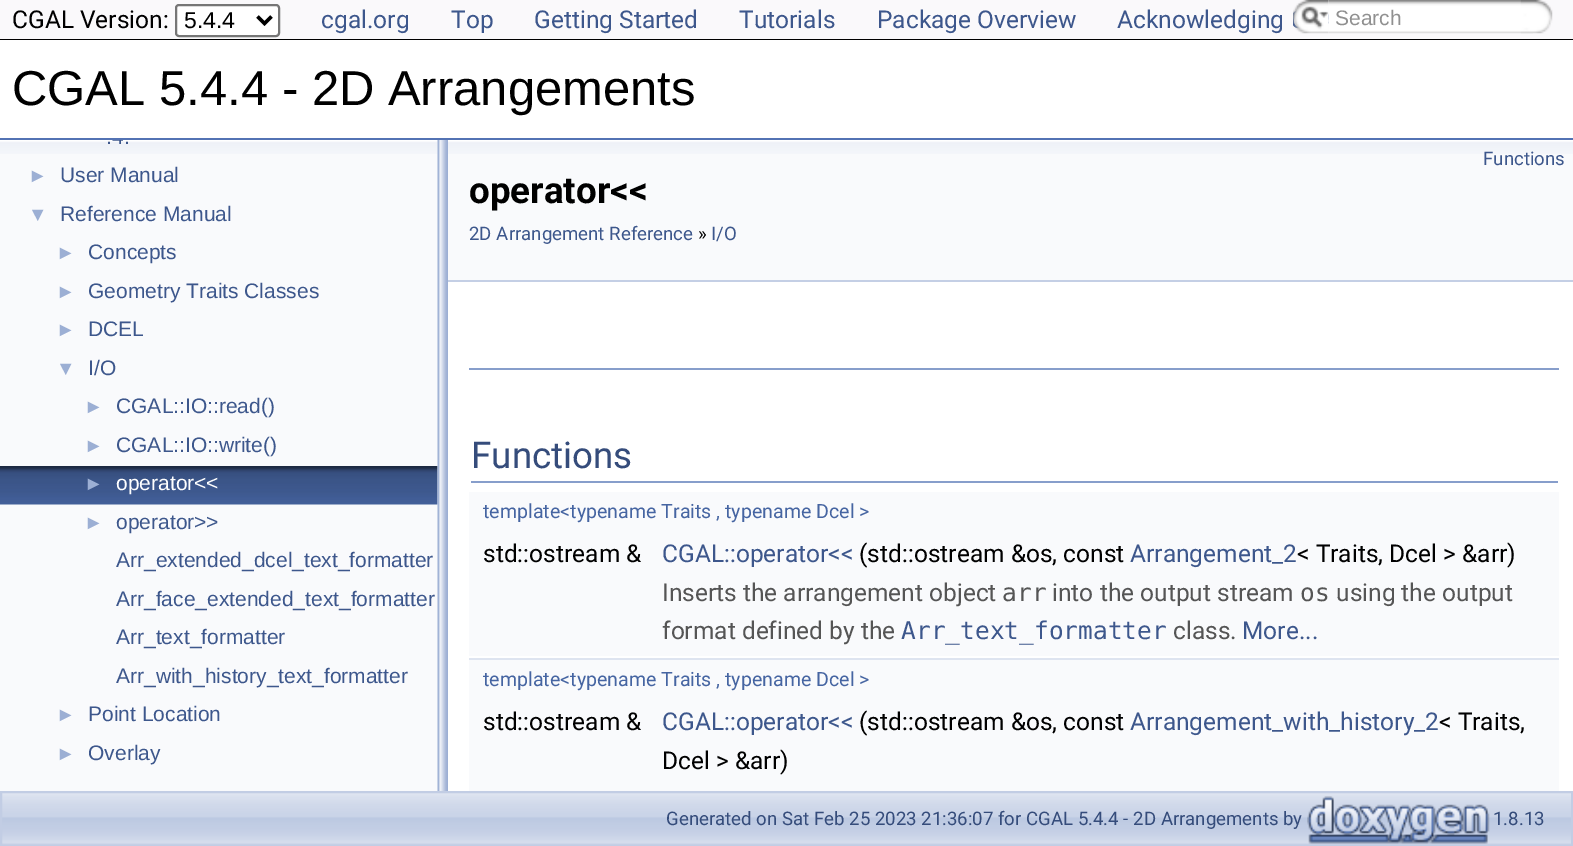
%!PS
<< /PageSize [1573 846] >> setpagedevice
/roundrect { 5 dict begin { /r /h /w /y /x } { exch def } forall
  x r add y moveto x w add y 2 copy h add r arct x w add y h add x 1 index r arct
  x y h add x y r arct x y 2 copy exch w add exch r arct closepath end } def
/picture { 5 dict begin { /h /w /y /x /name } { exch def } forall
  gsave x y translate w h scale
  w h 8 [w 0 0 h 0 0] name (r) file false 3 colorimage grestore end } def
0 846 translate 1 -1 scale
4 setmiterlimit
1 setgray
0 0 1573 846 rectfill
0.98 0.976 0.984 setrgbcolor
0 0 1573 39 rectfill
0 setgray
0 39 1573 1 rectfill
/Roboto-Regular [24.5 0 0 -24.5 0 0] selectfont
12 28 moveto (CGAL Version:) show
1 setgray
176 5 103 31 3 roundrect gsave fill grestore
0.463 setgray
2 setlinewidth
stroke
0 setgray
3.5 setlinewidth
newpath 257.5 16.5 moveto 264.5 23.5 lineto 271.5 16.5 lineto stroke
/LiberationSans-Regular [23 0 0 -23 0 0] selectfont
184 28 moveto (5.4.4) show
/Roboto-Regular [24.5 0 0 -24.5 0 0] selectfont
0.239 0.341 0.549 setrgbcolor
321 28 moveto (cgal.org) show
451 28 moveto (Top) show
534 28 moveto (Getting Started) show
739 28 moveto (Tutorials) show
877 28 moveto (Package Overview) show
1117 28 moveto (Acknowledging) show
(img1.rgb) 1293 0 36 34 picture
(img2.rgb) 1301 6 28 23 picture
(img3.rgb) 1328 0 205 34 picture
/LiberationSans-Regular [21 0 0 -21 0 0] selectfont
0.565 setgray
1335 25 moveto (Search) show
(img4.rgb) 1520 0 33 34 picture
0.325 0.451 0.706 setrgbcolor
0 138 1573 2 rectfill
/LiberationSans-Regular [49 0 0 -49 0 0] selectfont
0 setgray
12 105 moveto (CGAL 5.4.4 - 2D Arrangements) show
0.976 0.98 0.988 setrgbcolor
0 140 438 651 rectfill
(img5.rgb) 0 140 438 14 picture
gsave
0 140 438 651 rectclip
/LiberationSans-Regular [21 0 0 -21 0 0] selectfont
0.239 0.341 0.549 setrgbcolor
106 144 moveto (.4.) show
grestore
/LiberationSans-Regular [19.6 0 0 -19.6 0 0] selectfont
0.612 0.686 0.831 setrgbcolor
28 182 moveto (►) show
/LiberationSans-Regular [21 0 0 -21 0 0] selectfont
0.239 0.341 0.549 setrgbcolor
60 182 moveto (User Manual) show
/LiberationSans-Regular [19.6 0 0 -19.6 0 0] selectfont
0.612 0.686 0.831 setrgbcolor
28 221 moveto (▼) show
/LiberationSans-Regular [21 0 0 -21 0 0] selectfont
0.239 0.341 0.549 setrgbcolor
60 221 moveto (Reference Manual) show
/LiberationSans-Regular [19.6 0 0 -19.6 0 0] selectfont
0.612 0.686 0.831 setrgbcolor
56 259 moveto (►) show
/LiberationSans-Regular [21 0 0 -21 0 0] selectfont
0.239 0.341 0.549 setrgbcolor
88 259 moveto (Concepts) show
/LiberationSans-Regular [19.6 0 0 -19.6 0 0] selectfont
0.612 0.686 0.831 setrgbcolor
56 298 moveto (►) show
/LiberationSans-Regular [21 0 0 -21 0 0] selectfont
0.239 0.341 0.549 setrgbcolor
88 298 moveto (Geometry Traits Classes) show
/LiberationSans-Regular [19.6 0 0 -19.6 0 0] selectfont
0.612 0.686 0.831 setrgbcolor
56 336 moveto (►) show
/LiberationSans-Regular [21 0 0 -21 0 0] selectfont
0.239 0.341 0.549 setrgbcolor
88 336 moveto (DCEL) show
/LiberationSans-Regular [19.6 0 0 -19.6 0 0] selectfont
0.612 0.686 0.831 setrgbcolor
56 375 moveto (▼) show
/LiberationSans-Regular [21 0 0 -21 0 0] selectfont
0.239 0.341 0.549 setrgbcolor
88 375 moveto (I/O) show
/LiberationSans-Regular [19.6 0 0 -19.6 0 0] selectfont
0.612 0.686 0.831 setrgbcolor
84 413 moveto (►) show
/LiberationSans-Regular [21 0 0 -21 0 0] selectfont
0.239 0.341 0.549 setrgbcolor
116 413 moveto (CGAL::IO::read\(\)) show
/LiberationSans-Regular [19.6 0 0 -19.6 0 0] selectfont
0.612 0.686 0.831 setrgbcolor
84 452 moveto (►) show
/LiberationSans-Regular [21 0 0 -21 0 0] selectfont
0.239 0.341 0.549 setrgbcolor
116 452 moveto (CGAL::IO::write\(\)) show
(img6.rgb) 0 466 438 39 picture
/LiberationSans-Regular [19.6 0 0 -19.6 0 0] selectfont
0.612 0.686 0.831 setrgbcolor
84 490 moveto (►) show
/LiberationSans-Regular [21 0 0 -21 0 0] selectfont
1 setgray
116 490 moveto (operator<<) show
/LiberationSans-Regular [19.6 0 0 -19.6 0 0] selectfont
0.612 0.686 0.831 setrgbcolor
84 529 moveto (►) show
/LiberationSans-Regular [21 0 0 -21 0 0] selectfont
0.239 0.341 0.549 setrgbcolor
116 529 moveto (operator>>) show
116 567 moveto (Arr_extended_dcel_text_formatter) show
116 606 moveto (Arr_face_extended_text_formatter) show
116 644 moveto (Arr_text_formatter) show
116 683 moveto (Arr_with_history_text_formatter) show
/LiberationSans-Regular [19.6 0 0 -19.6 0 0] selectfont
0.612 0.686 0.831 setrgbcolor
56 721 moveto (►) show
/LiberationSans-Regular [21 0 0 -21 0 0] selectfont
0.239 0.341 0.549 setrgbcolor
88 721 moveto (Point Location) show
/LiberationSans-Regular [19.6 0 0 -19.6 0 0] selectfont
0.612 0.686 0.831 setrgbcolor
56 760 moveto (►) show
/LiberationSans-Regular [21 0 0 -21 0 0] selectfont
0.239 0.341 0.549 setrgbcolor
88 760 moveto (Overlay) show
(img7.rgb) 437 140 11 651 picture
0.976 0.98 0.988 setrgbcolor
448 154 1125 126 rectfill
(img8.rgb) 448 140 1125 14 picture
0.769 0.812 0.898 setrgbcolor
448 280 1125 2 rectfill
/Roboto-Regular [18.65 0 0 -18.65 0 0] selectfont
0.239 0.341 0.549 setrgbcolor
1483 165 moveto (Functions) show
/Roboto-Bold [36.75 0 0 -36.75 0 0] selectfont
0 setgray
469 203 moveto (operator<<) show
/Roboto-Regular [18.65 0 0 -18.65 0 0] selectfont
0.239 0.341 0.549 setrgbcolor
469 240 moveto (2D Arrangement Reference) show
0 setgray
698 240 moveto (») show
0.239 0.341 0.549 setrgbcolor
711 240 moveto (I/O) show
0.529 0.62 0.796 setrgbcolor
469 368 1090 2 rectfill
471 481 1087 2 rectfill
/Roboto-Regular [36.75 0 0 -36.75 0 0] selectfont
0.208 0.298 0.482 setrgbcolor
471 468 moveto (Functions) show
0.976 0.98 0.988 setrgbcolor
469 492 1090 40 rectfill
/Roboto-Regular [19.6 0 0 -19.6 0 0] selectfont
0.275 0.396 0.635 setrgbcolor
483 518 moveto (template<typename Traits , typename Dcel >) show
0.976 0.98 0.988 setrgbcolor
469 532 1090 40 rectfill
/Roboto-Regular [24.5 0 0 -24.5 0 0] selectfont
0 setgray
483 562 moveto (std::ostream &) show
0.239 0.341 0.549 setrgbcolor
662 562 moveto (CGAL::operator<<) show
0 setgray
859 562 moveto (\(std::ostream &os, const) show
0.239 0.341 0.549 setrgbcolor
1130 562 moveto (Arrangement_2) show
0 setgray
1297 562 moveto (< Traits, Dcel > &arr\)) show
0.976 0.98 0.988 setrgbcolor
469 572 1090 84 rectfill
0.333 setgray
662 601 moveto (Inserts the arrangement object) show
/DejaVuSansMono-Regular [24.5 0 0 -24.5 0 0] selectfont
1002 601 moveto (arr) show
/Roboto-Regular [24.5 0 0 -24.5 0 0] selectfont
1052 601 moveto (into the output stream) show
/DejaVuSansMono-Regular [24.5 0 0 -24.5 0 0] selectfont
1300 601 moveto (os) show
/Roboto-Regular [24.5 0 0 -24.5 0 0] selectfont
1336 601 moveto (using the output) show
662 639 moveto (format defined by the) show
/DejaVuSansMono-Regular [24.5 0 0 -24.5 0 0] selectfont
0.239 0.341 0.549 setrgbcolor
901 639 moveto (Arr_text_formatter) show
/Roboto-Regular [24.5 0 0 -24.5 0 0] selectfont
0.333 setgray
1173 639 moveto (class.) show
0.239 0.341 0.549 setrgbcolor
1242 639 moveto (More...) show
0.871 0.894 0.941 setrgbcolor
469 658 1090 2 rectfill
0.976 0.98 0.988 setrgbcolor
469 660 1090 40 rectfill
/Roboto-Regular [19.6 0 0 -19.6 0 0] selectfont
0.275 0.396 0.635 setrgbcolor
483 686 moveto (template<typename Traits , typename Dcel >) show
0.976 0.98 0.988 setrgbcolor
469 700 1090 79 rectfill
/Roboto-Regular [24.5 0 0 -24.5 0 0] selectfont
0 setgray
483 730 moveto (std::ostream &) show
0.239 0.341 0.549 setrgbcolor
662 730 moveto (CGAL::operator<<) show
0 setgray
859 730 moveto (\(std::ostream &os, const) show
0.239 0.341 0.549 setrgbcolor
1130 730 moveto (Arrangement_with_history_2) show
0 setgray
1439 730 moveto (< Traits,) show
662 769 moveto (Dcel > &arr\)) show
0.976 0.98 0.988 setrgbcolor
469 779 1090 12 rectfill
(img9.rgb) 2 793 1569 52 picture
0.761 0.804 0.894 setrgbcolor
2 setlinewidth
1 792 1571 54 rectstroke
/Roboto-Regular [18.65 0 0 -18.65 0 0] selectfont
0.208 0.298 0.482 setrgbcolor
666 825 moveto (Generated on Sat Feb 25 2023 21:36:07 for CGAL 5.4.4 - 2D Arrangements by) show
(img10.rgb) 1307 796 183 48 picture
1493 825 moveto (1.8.13) show
showpage
